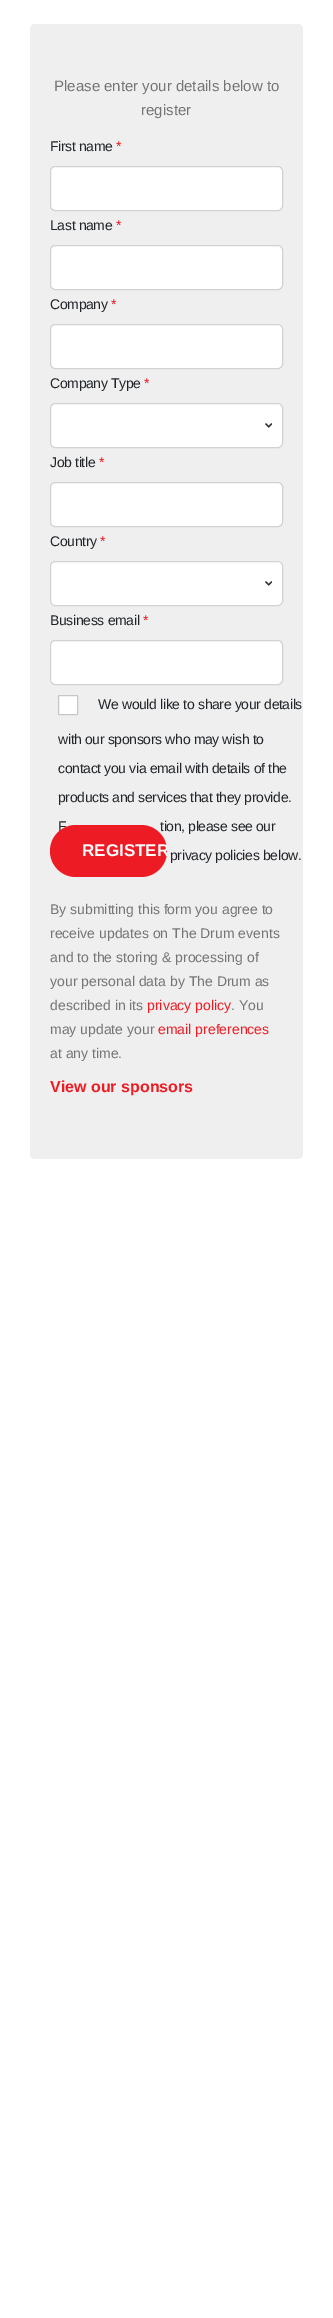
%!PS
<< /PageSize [333 2318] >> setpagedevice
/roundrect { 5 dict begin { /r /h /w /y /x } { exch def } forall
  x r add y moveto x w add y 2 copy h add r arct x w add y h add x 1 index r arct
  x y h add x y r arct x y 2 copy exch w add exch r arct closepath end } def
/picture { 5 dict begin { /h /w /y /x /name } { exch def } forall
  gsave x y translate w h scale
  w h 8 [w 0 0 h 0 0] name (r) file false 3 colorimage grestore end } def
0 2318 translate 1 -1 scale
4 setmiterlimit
1 setgray
0 0 333 2318 rectfill
0.937 setgray
30 24 273 1135 5 roundrect fill
/LiberationSans-Regular [15 0 0 -15 0 0] selectfont
0.459 setgray
54 91 moveto (Please enter your details below to) show
141 115 moveto (register) show
/LiberationSans-Regular [14 0 0 -14 0 0] selectfont
0.129 0.145 0.161 setrgbcolor
50 151 moveto -0.35 0 (First name) ashow
0.929 0.11 0.141 setrgbcolor
116 151 moveto -0.35 0 (*) ashow
1 setgray
50.5 166.5 232 44 4.5 roundrect gsave fill grestore
0.824 setgray
stroke
0.129 0.145 0.161 setrgbcolor
50 230 moveto -0.35 0 (Last name) ashow
0.929 0.11 0.141 setrgbcolor
116 230 moveto -0.35 0 (*) ashow
1 setgray
50.5 245.5 232 44 4.5 roundrect gsave fill grestore
0.824 setgray
stroke
0.129 0.145 0.161 setrgbcolor
50 309 moveto -0.35 0 (Company) ashow
0.929 0.11 0.141 setrgbcolor
111 309 moveto -0.35 0 (*) ashow
1 setgray
50.5 324.5 232 44 4.5 roundrect gsave fill grestore
0.824 setgray
stroke
0.129 0.145 0.161 setrgbcolor
50 388 moveto -0.35 0 (Company Type) ashow
0.929 0.11 0.141 setrgbcolor
144 388 moveto -0.35 0 (*) ashow
1 setgray
50 403 233 45 5 roundrect fill
(img1.rgb) 265 423 7 5 picture
0.824 setgray
50.5 403.5 232 44 4.5 roundrect stroke
0.129 0.145 0.161 setrgbcolor
50 467 moveto -0.35 0 (Job title) ashow
0.929 0.11 0.141 setrgbcolor
99 467 moveto -0.35 0 (*) ashow
1 setgray
50.5 482.5 232 44 4.5 roundrect gsave fill grestore
0.824 setgray
stroke
0.129 0.145 0.161 setrgbcolor
50 546 moveto -0.35 0 (Country) ashow
0.929 0.11 0.141 setrgbcolor
100 546 moveto -0.35 0 (*) ashow
1 setgray
50 561 233 45 5 roundrect fill
(img1.rgb) 265 581 7 5 picture
0.824 setgray
50.5 561.5 232 44 4.5 roundrect stroke
0.129 0.145 0.161 setrgbcolor
50 625 moveto -0.35 0 (Business email) ashow
0.929 0.11 0.141 setrgbcolor
143 625 moveto -0.35 0 (*) ashow
1 setgray
50.5 640.5 232 44 4.5 roundrect gsave fill grestore
0.824 setgray
stroke
1 setgray
58.5 695.5 19 19 0.5 roundrect gsave fill grestore
0.78 setgray
stroke
0.129 0.145 0.161 setrgbcolor
98 709 moveto -0.35 0 (We would like to share your details) ashow
58 744 moveto -0.35 0 (with our sponsors who may wish to) ashow
58 773 moveto -0.35 0 (contact you via email with details of the) ashow
58 802 moveto -0.35 0 (products and services that they provide.) ashow
58 831 moveto -0.35 0 (F) ashow
160 831 moveto -0.35 0 (tion, please see our) ashow
170 860 moveto -0.35 0 (privacy policies below.) ashow
0.929 0.11 0.141 setrgbcolor
50 825 117 52 26 roundrect fill
gsave
50 825 117 52 26 roundrect clip newpath
/LiberationSans-Bold [17 0 0 -17 0 0] selectfont
1 setgray
82 856 moveto (REGISTER) show
grestore
0.459 setgray
50 914 moveto (By submitting this form you agree to) show
50 938 moveto (receive updates on The Drum events) show
50 962 moveto (and to the storing & processing of) show
50 986 moveto (your personal data by The Drum as) show
50 1010 moveto (described in its) show
0.929 0.11 0.141 setrgbcolor
147 1010 moveto (privacy policy) show
0.459 setgray
231 1010 moveto (. You) show
50 1034 moveto (may update your) show
0.929 0.11 0.141 setrgbcolor
158 1034 moveto (email preferences) show
0.459 setgray
50 1058 moveto (at any time.) show
/LiberationSans-Bold [16 0 0 -16 0 0] selectfont
0.929 0.11 0.141 setrgbcolor
50 1092 moveto (View our sponsors) show
showpage
